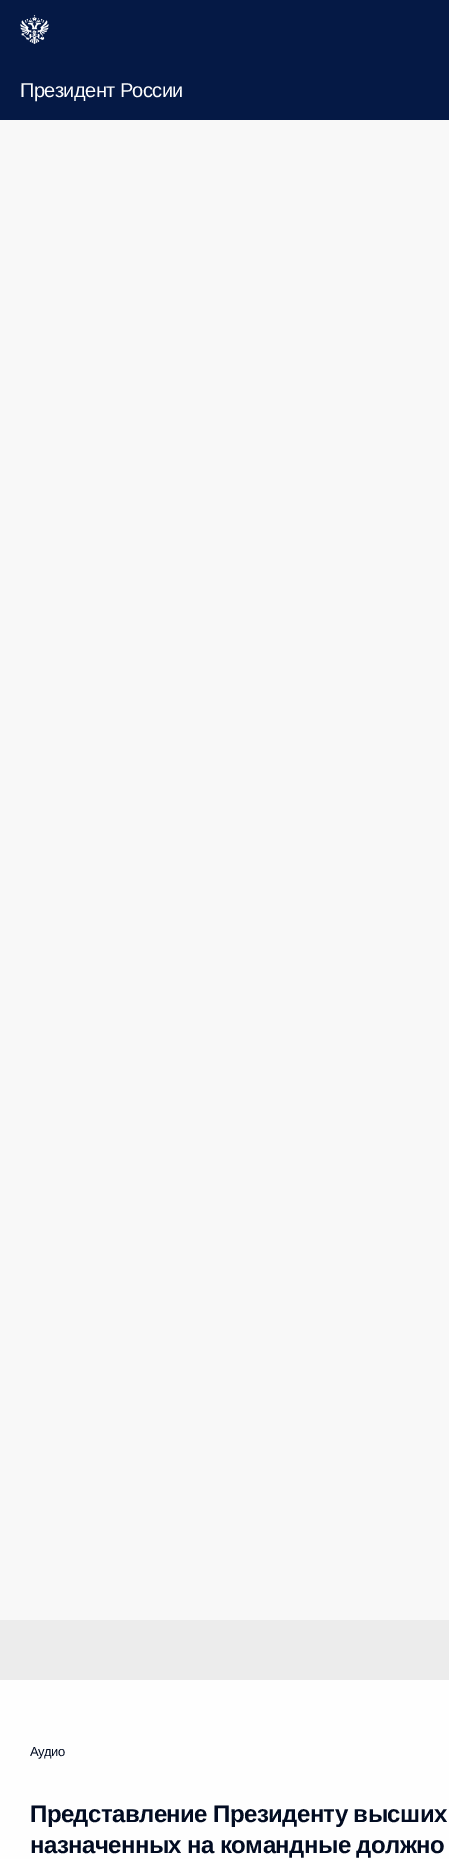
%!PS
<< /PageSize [449 1859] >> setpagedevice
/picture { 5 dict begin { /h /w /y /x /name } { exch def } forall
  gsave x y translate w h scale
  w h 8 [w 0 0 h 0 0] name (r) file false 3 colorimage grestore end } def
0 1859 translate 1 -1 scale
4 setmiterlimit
0.925 setgray
0 0 449 1859 rectfill
0.02 0.098 0.271 setrgbcolor
0 0 449 120 rectfill
(img1.rgb) 20 15 29 29 picture
/LiberationSans-Regular [20 0 0 -20 0 0] selectfont
0.996 setgray
20 97 moveto -0.6 0 (Президент России) ashow
0.973 setgray
0 120 449 1500 rectfill
0.996 setgray
0 1680 449 179 rectfill
/LiberationSans-Regular [13 0 0 -13 0 0] selectfont
0.008 0.047 0.133 setrgbcolor
30 1756 moveto -0.6 0 (Аудио) ashow
/LiberationSans-Bold [24 0 0 -24 0 0] selectfont
30 1822 moveto -0.6 0 (Представление Президенту высших) ashow
30 1853 moveto -0.6 0 (назначенных на командные должно) ashow
showpage
